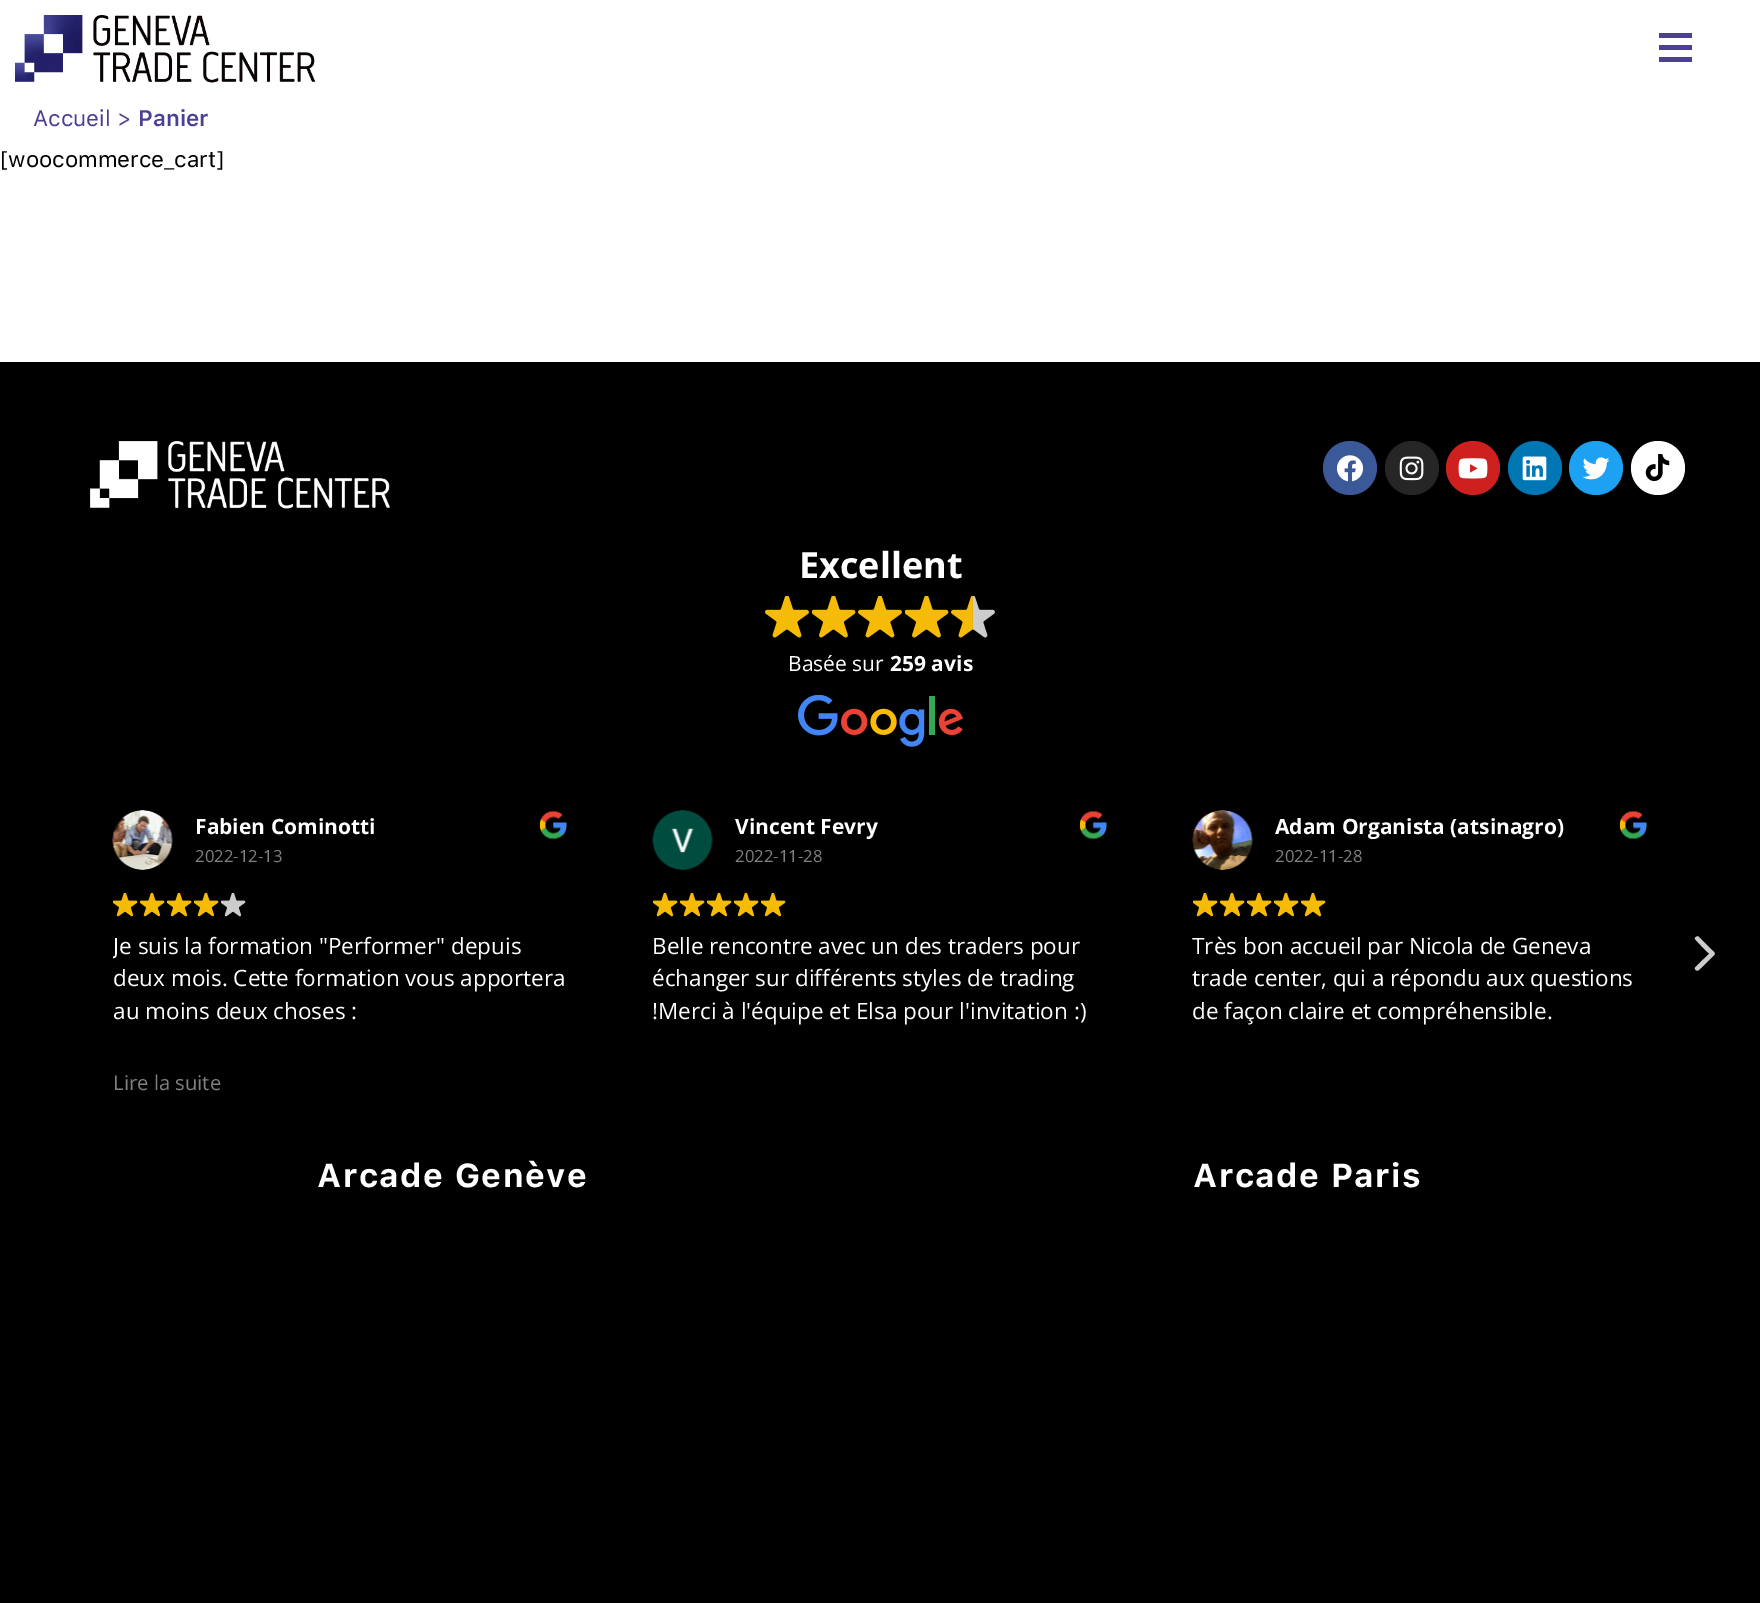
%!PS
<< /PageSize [1760 1603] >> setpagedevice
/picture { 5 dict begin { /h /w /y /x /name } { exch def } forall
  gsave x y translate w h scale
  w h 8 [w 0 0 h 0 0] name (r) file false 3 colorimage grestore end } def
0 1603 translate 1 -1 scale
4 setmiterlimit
1 setgray
0 0 1760 1603 rectfill
(img1.rgb) 15 15 300 68 picture
0.29 0.255 0.576 setrgbcolor
1659 33 33 5 rectfill
1659 45 33 5 rectfill
1659 57 33 5 rectfill
/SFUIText-Regular [22.5 0 0 -22.5 0 0] selectfont
33 126 moveto (Accueil >) show
/SFUIText-SemiBold [22.5 0 0 -22.5 0 0] selectfont
138 126 moveto (Panier) show
/SFUIText-Regular [22.5 0 0 -22.5 0 0] selectfont
0 setgray
0 167 moveto ([woocommerce_cart]) show
0 362 1760 1241 rectfill
(img2.rgb) 90 441 300 68 picture
0.231 0.349 0.596 setrgbcolor
newpath 1350 468 27 0 360 arc closepath fill
(img3.rgb) 1336 455 28 27 picture
0.149 setgray
newpath 1412 468 27 0 360 arc closepath fill
(img4.rgb) 1399 456 25 25 picture
0.804 0.125 0.122 setrgbcolor
newpath 1473 468 27 0 360 arc closepath fill
(img5.rgb) 1458 458 30 21 picture
0 0.467 0.71 setrgbcolor
newpath 1535 468 27 0 360 arc closepath fill
(img6.rgb) 1522 456 25 25 picture
0.114 0.631 0.949 setrgbcolor
newpath 1596 468 27 0 360 arc closepath fill
(img7.rgb) 1582 457 28 23 picture
1 setgray
newpath 1658 468 27 0 360 arc closepath fill
(img8.rgb) 1645 454 25 28 picture
/OpenSans-Bold [36 0 0 -36 0 0] selectfont
799 578 moveto (Excellent) show
(img9.rgb) 765 596 44 42 picture
(img10.rgb) 812 596 44 42 picture
(img9.rgb) 858 596 44 42 picture
(img10.rgb) 905 596 44 42 picture
(img11.rgb) 951 596 44 42 picture
/OpenSans-Regular [21 0 0 -21 0 0] selectfont
788 671 moveto (Basée sur) show
/OpenSans-Bold [21 0 0 -21 0 0] selectfont
890 671 moveto (259 avis) show
(img12.rgb) 798 695 165 52 picture
(img13.rgb) 112 810 61 60 picture
195 834 moveto (Fabien Cominotti) show
/OpenSans-Regular [16.75 0 0 -16.75 0 0] selectfont
0.502 setgray
195 862 moveto (2022-12-13) show
(img14.rgb) 539 810 28 30 picture
(img15.rgb) 113 893 25 24 picture
(img15.rgb) 140 893 25 24 picture
(img15.rgb) 167 893 25 24 picture
(img15.rgb) 194 893 25 24 picture
(img16.rgb) 221 893 25 24 picture
gsave
113 930 456 131 rectclip
/OpenSans-Regular [22.5 0 0 -22.5 0 0] selectfont
1 setgray
113 954 moveto (Je suis la formation "Performer" depuis) show
grestore
/OpenSans-Regular [22.5 0 0 -22.5 0 0] selectfont
1 setgray
113 986 moveto (deux mois. Cette formation vous apportera) show
113 1019 moveto (au moins deux choses :) show
/OpenSans-Regular [20.25 0 0 -20.25 0 0] selectfont
0.502 setgray
113 1090 moveto (Lire la suite) show
(img17.rgb) 652 810 61 60 picture
/OpenSans-Bold [21 0 0 -21 0 0] selectfont
1 setgray
735 834 moveto (Vincent Fevry) show
/OpenSans-Regular [16.75 0 0 -16.75 0 0] selectfont
0.502 setgray
735 862 moveto (2022-11-28) show
(img14.rgb) 1079 810 28 30 picture
(img15.rgb) 653 893 25 24 picture
(img15.rgb) 680 893 25 24 picture
(img15.rgb) 707 893 25 24 picture
(img15.rgb) 734 893 25 24 picture
(img15.rgb) 761 893 25 24 picture
/OpenSans-Regular [22.5 0 0 -22.5 0 0] selectfont
1 setgray
652 954 moveto (Belle rencontre avec un des traders pour) show
652 986 moveto (échanger sur différents styles de trading) show
652 1019 moveto (!Merci à l'équipe et Elsa pour l'invitation :\)) show
(img18.rgb) 1192 810 61 60 picture
/OpenSans-Bold [21 0 0 -21 0 0] selectfont
1275 834 moveto (Adam Organista \(atsinagro\)) show
/OpenSans-Regular [16.75 0 0 -16.75 0 0] selectfont
0.502 setgray
1275 862 moveto (2022-11-28) show
(img14.rgb) 1619 810 28 30 picture
(img15.rgb) 1193 893 25 24 picture
(img15.rgb) 1220 893 25 24 picture
(img15.rgb) 1247 893 25 24 picture
(img15.rgb) 1274 893 25 24 picture
(img15.rgb) 1301 893 25 24 picture
/OpenSans-Regular [22.5 0 0 -22.5 0 0] selectfont
1 setgray
1192 954 moveto (Très bon accueil par Nicola de Geneva) show
1192 986 moveto (trade center, qui a répondu aux questions) show
1192 1019 moveto (de façon claire et compréhensible.) show
0.8 setgray
newpath 1699 937 moveto 1714.5 952.5 lineto 1714.5 953.5 1714.5 954.5 1713.5 955.5 curveto 1713 955.5 1712 956 1711.5 955.5 curveto 1710 955 1695.5 940 1695 939 curveto 1694.5 937 1697.5 935.5 1699 937 curveto closepath fill
newpath 1695.5 967 moveto 1711.5 951.5 lineto 1712.5 951 1713.5 951.5 1714 952.5 curveto 1714.5 953 1714.5 954 1714.5 954.5 curveto 1713.5 955.5 1699 970.5 1698 970.5 curveto 1695.5 971 1694 968.5 1695.5 967 curveto closepath fill
/SFUIText-Bold [33 0 0 -33 0 0] selectfont
1 setgray
317 1187 moveto 1.5 0 (Arcade Genève) ashow
1193 1187 moveto 1.5 0 (Arcade Paris) ashow
showpage
